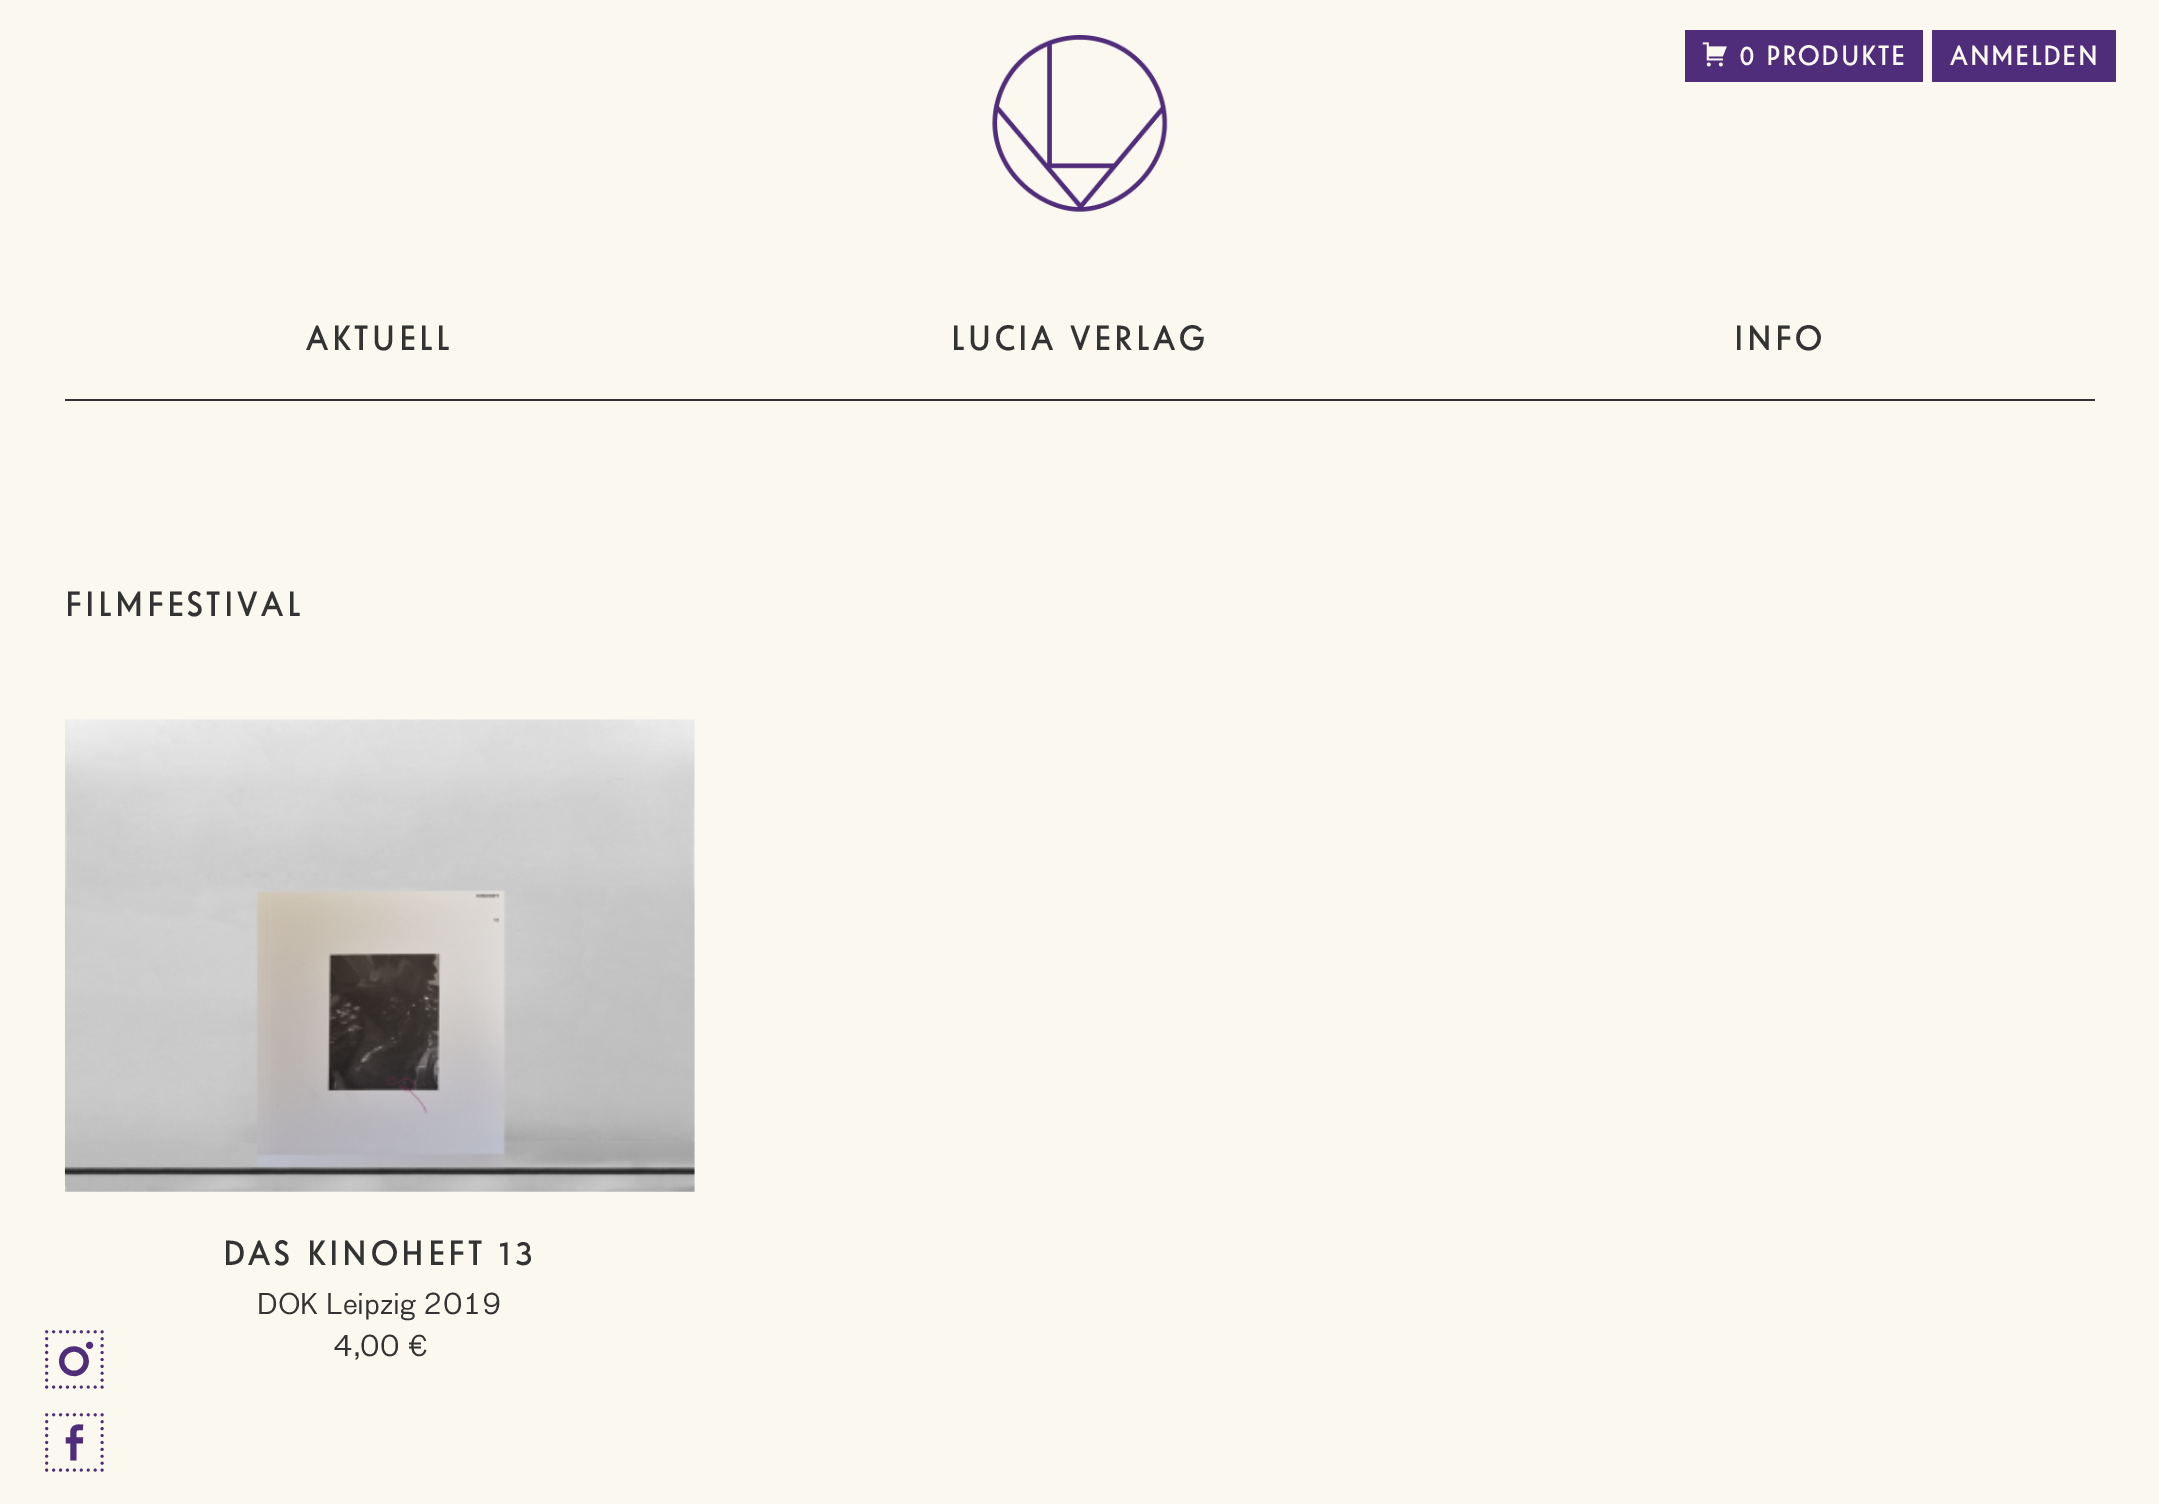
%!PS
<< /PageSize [2159 1504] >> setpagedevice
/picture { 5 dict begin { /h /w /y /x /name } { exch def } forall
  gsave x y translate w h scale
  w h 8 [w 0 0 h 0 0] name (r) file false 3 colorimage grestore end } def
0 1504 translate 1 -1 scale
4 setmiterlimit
0.984 0.976 0.937 setrgbcolor
0 0 2159 1504 rectfill
0.314 0.176 0.478 setrgbcolor
1685 30 238 52 rectfill
(img1.rgb) 1702 42 25 25 picture
/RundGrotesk-Medium [28 0 0 -28 0 0] selectfont
0.984 0.976 0.937 setrgbcolor
1739 65 moveto 1.75 0 (0 PRODUKTE) ashow
0.314 0.176 0.478 setrgbcolor
1932 30 184 52 rectfill
0.984 0.976 0.937 setrgbcolor
1950 65 moveto 1.75 0 (ANMELDEN) ashow
/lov-Regular [105 0 0 -105 0 0] selectfont
0.314 0.176 0.478 setrgbcolor
43 1391 moveto (I) show
43 1474 moveto (f) show
(img2.rgb) 992 35 176 177 picture
0.2 setgray
65 399 2030 2 rectfill
/RundGrotesk-Medium [35 0 0 -35 0 0] selectfont
306 350 moveto 3.5 0 (AKTUELL) ashow
951 350 moveto 3.5 0 (LUCIA VERLAG) ashow
1734 350 moveto 3.5 0 (INFO) ashow
65 616 moveto 3.5 0 (FILMFESTIVAL) ashow
(img3.rgb) 64 719 631 473 picture
223 1265 moveto 3.5 0 (DAS KINOHEFT 13) ashow
/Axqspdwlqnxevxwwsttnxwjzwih-Regular [28 0 0 -28 0 0] selectfont
257 1314 moveto (DOK Leipzig 2019) show
333 1356 moveto (4,00 €) show
showpage
